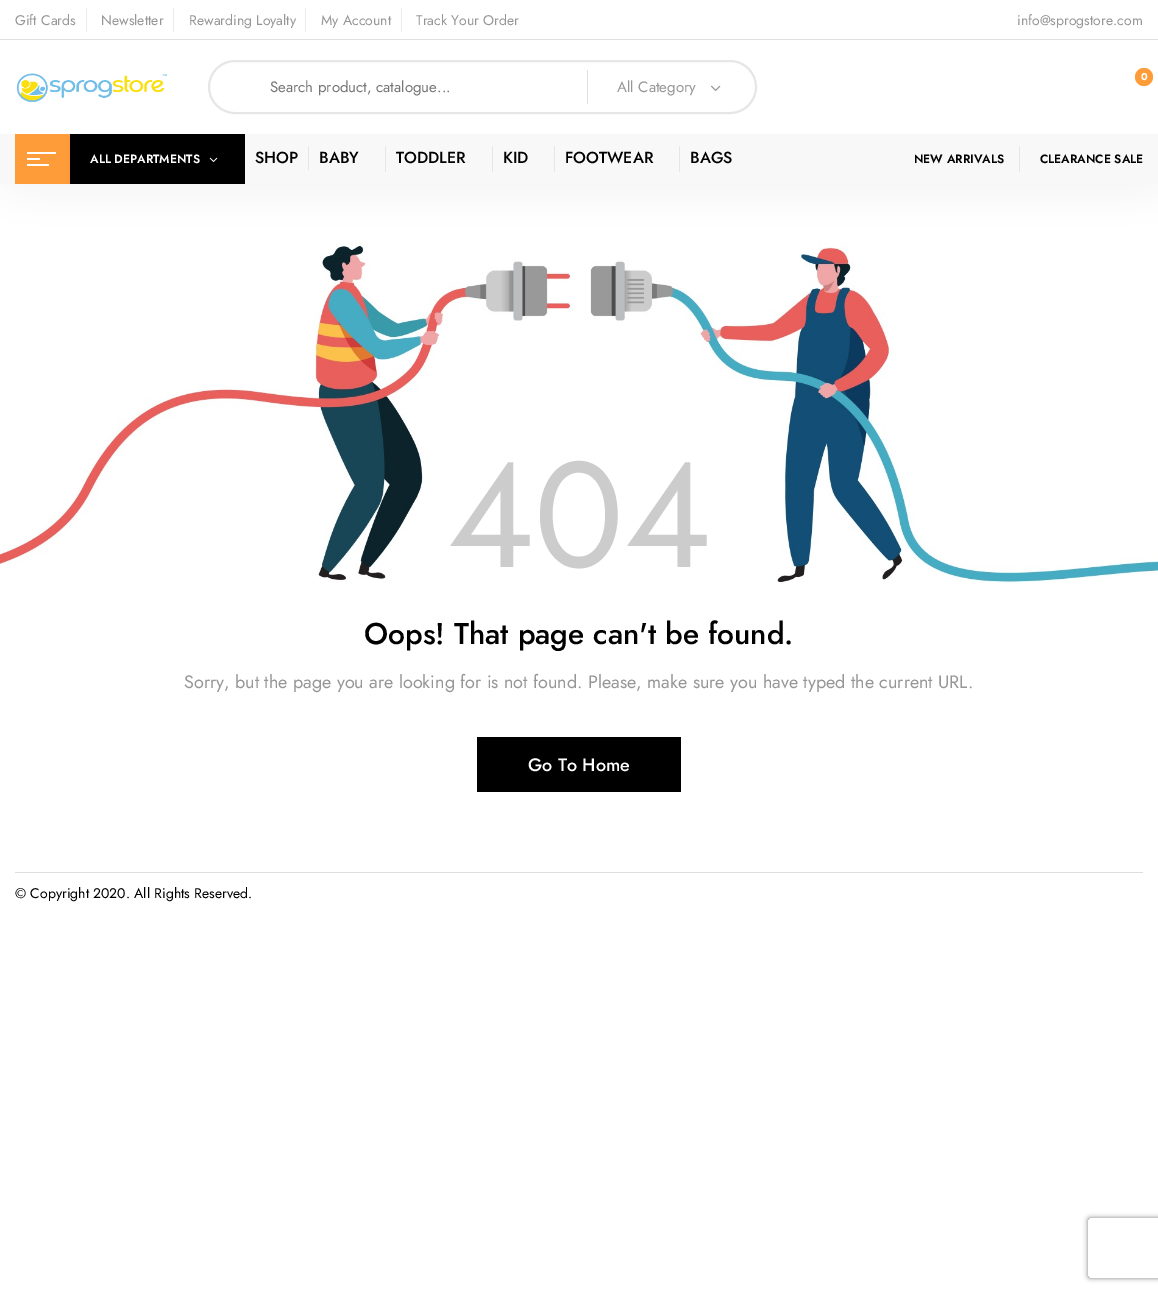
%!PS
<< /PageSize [1158 1292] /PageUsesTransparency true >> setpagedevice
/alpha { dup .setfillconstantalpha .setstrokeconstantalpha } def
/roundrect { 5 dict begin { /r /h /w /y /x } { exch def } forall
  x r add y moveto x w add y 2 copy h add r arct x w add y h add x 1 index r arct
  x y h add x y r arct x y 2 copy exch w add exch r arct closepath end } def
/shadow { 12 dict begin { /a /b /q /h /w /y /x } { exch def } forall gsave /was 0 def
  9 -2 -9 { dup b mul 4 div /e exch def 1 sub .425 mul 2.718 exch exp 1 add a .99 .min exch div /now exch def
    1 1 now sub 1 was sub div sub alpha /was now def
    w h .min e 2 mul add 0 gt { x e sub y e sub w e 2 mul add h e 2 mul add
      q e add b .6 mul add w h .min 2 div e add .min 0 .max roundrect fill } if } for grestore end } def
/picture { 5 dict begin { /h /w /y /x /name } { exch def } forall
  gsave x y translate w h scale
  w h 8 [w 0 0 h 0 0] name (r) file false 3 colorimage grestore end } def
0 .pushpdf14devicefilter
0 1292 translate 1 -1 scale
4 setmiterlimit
1 setgray
0 0 1158 1292 rectfill
0.878 setgray
0 39 1158 1 rectfill
0.922 setgray
86 8 1 24 rectfill
/Jost-Regular [14 0 0 -14 0 0] selectfont
0.588 setgray
15 25 moveto (Gift Cards) show
0.922 setgray
173 8 1 24 rectfill
0.588 setgray
101 25 moveto (Newsletter) show
0.922 setgray
305 8 1 24 rectfill
0.588 setgray
189 25 moveto (Rewarding Loyalty) show
0.922 setgray
401 8 1 24 rectfill
0.588 setgray
321 25 moveto (My Account) show
416 25 moveto (Track Your Order) show
1017 25 moveto (info@sprogstore.com) show
(img1.rgb) 16 73 151 29 picture
0.902 setgray
2 setlinewidth
209 61 547 52 26 roundrect stroke
/Jost-Regular [15 0 0 -15 0 0] selectfont
0.459 setgray
270 92 moveto (Search product, catalogue...) show
0.882 setgray
587 70 1 34 rectfill
0.588 setgray
617 92 moveto (All Category) show
(img2.rgb) 711 85 10 6 picture
1 0.612 0.227 setrgbcolor
newpath 1144 77 9 0 360 arc closepath fill
/Jost-Bold [10 0 0 -10 0 0] selectfont
1 setgray
1141 80 moveto (0) show
0.973 setgray
0 134 1158 50 rectfill
0 setgray
70 134 175 50 rectfill
1 0.612 0.227 setrgbcolor
15 134 55 50 rectfill
1 setgray
27 158 13 2 rectfill
27 152 29 2 rectfill
27 164 22 2 rectfill
/Jost-SemiBold [12 0 0 -12 0 0] selectfont
90 163 moveto (ALL DEPARTMENTS) show
(img3.rgb) 209 157 9 5 picture
0.902 setgray
308 146 1 24 rectfill
/Jost-Medium [16 0 0 -16 0 0] selectfont
0 setgray
255 163 moveto (SHOP) show
0.902 setgray
385 146 1 26 rectfill
0 setgray
319 163 moveto (BABY) show
0.902 setgray
492 146 1 26 rectfill
0 setgray
396 163 moveto (TODDLER) show
0.902 setgray
554 146 1 26 rectfill
0 setgray
503 163 moveto (KID) show
0.902 setgray
679 146 1 26 rectfill
0 setgray
565 163 moveto (FOOTWEAR) show
690 163 moveto (BAGS) show
0.902 setgray
1019 146 1 26 rectfill
/Jost-SemiBold [12 0 0 -12 0 0] selectfont
0 setgray
914 163 moveto (NEW ARRIVALS) show
1040 163 moveto (CLEARANCE SALE) show
(img4.rgb) 0 184 1158 399 picture
/Jost-Regular [150 0 0 -150 0 0] selectfont
0.8 setgray
447 567 moveto (404) show
/Jost-Medium [30 0 0 -30 0 0] selectfont
0 setgray
364 644 moveto (Oops! That page can't be found.) show
/Jost-Regular [18 0 0 -18 0 0] selectfont
0.588 setgray
184 688 moveto (Sorry, but the page you are looking for is not found. Please, make sure you have typed the current URL.) show
0 setgray
477 737 204 55 rectfill
/Jost-Medium [18 0 0 -18 0 0] selectfont
1 setgray
528 771 moveto (Go To Home) show
0.871 setgray
15 872 1128 1 rectfill
/Jost-Regular [14 0 0 -14 0 0] selectfont
0 setgray
15 898 moveto (© Copyright 2020. All Rights Reserved.) show
gsave
newpath 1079 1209 moveto 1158 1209 lineto 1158 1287 lineto 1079 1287 lineto closepath 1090 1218 moveto 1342 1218 lineto 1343 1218 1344 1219 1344 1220 curveto 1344 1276 lineto 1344 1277 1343 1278 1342 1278 curveto 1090 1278 lineto 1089 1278 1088 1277 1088 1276 curveto 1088 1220 lineto 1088 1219 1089 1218 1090 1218 curveto closepath eoclip newpath
0.502 setgray
1088 1218 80 60 2 2.5 1 shadow
grestore
.poppdf14devicefilter showpage
